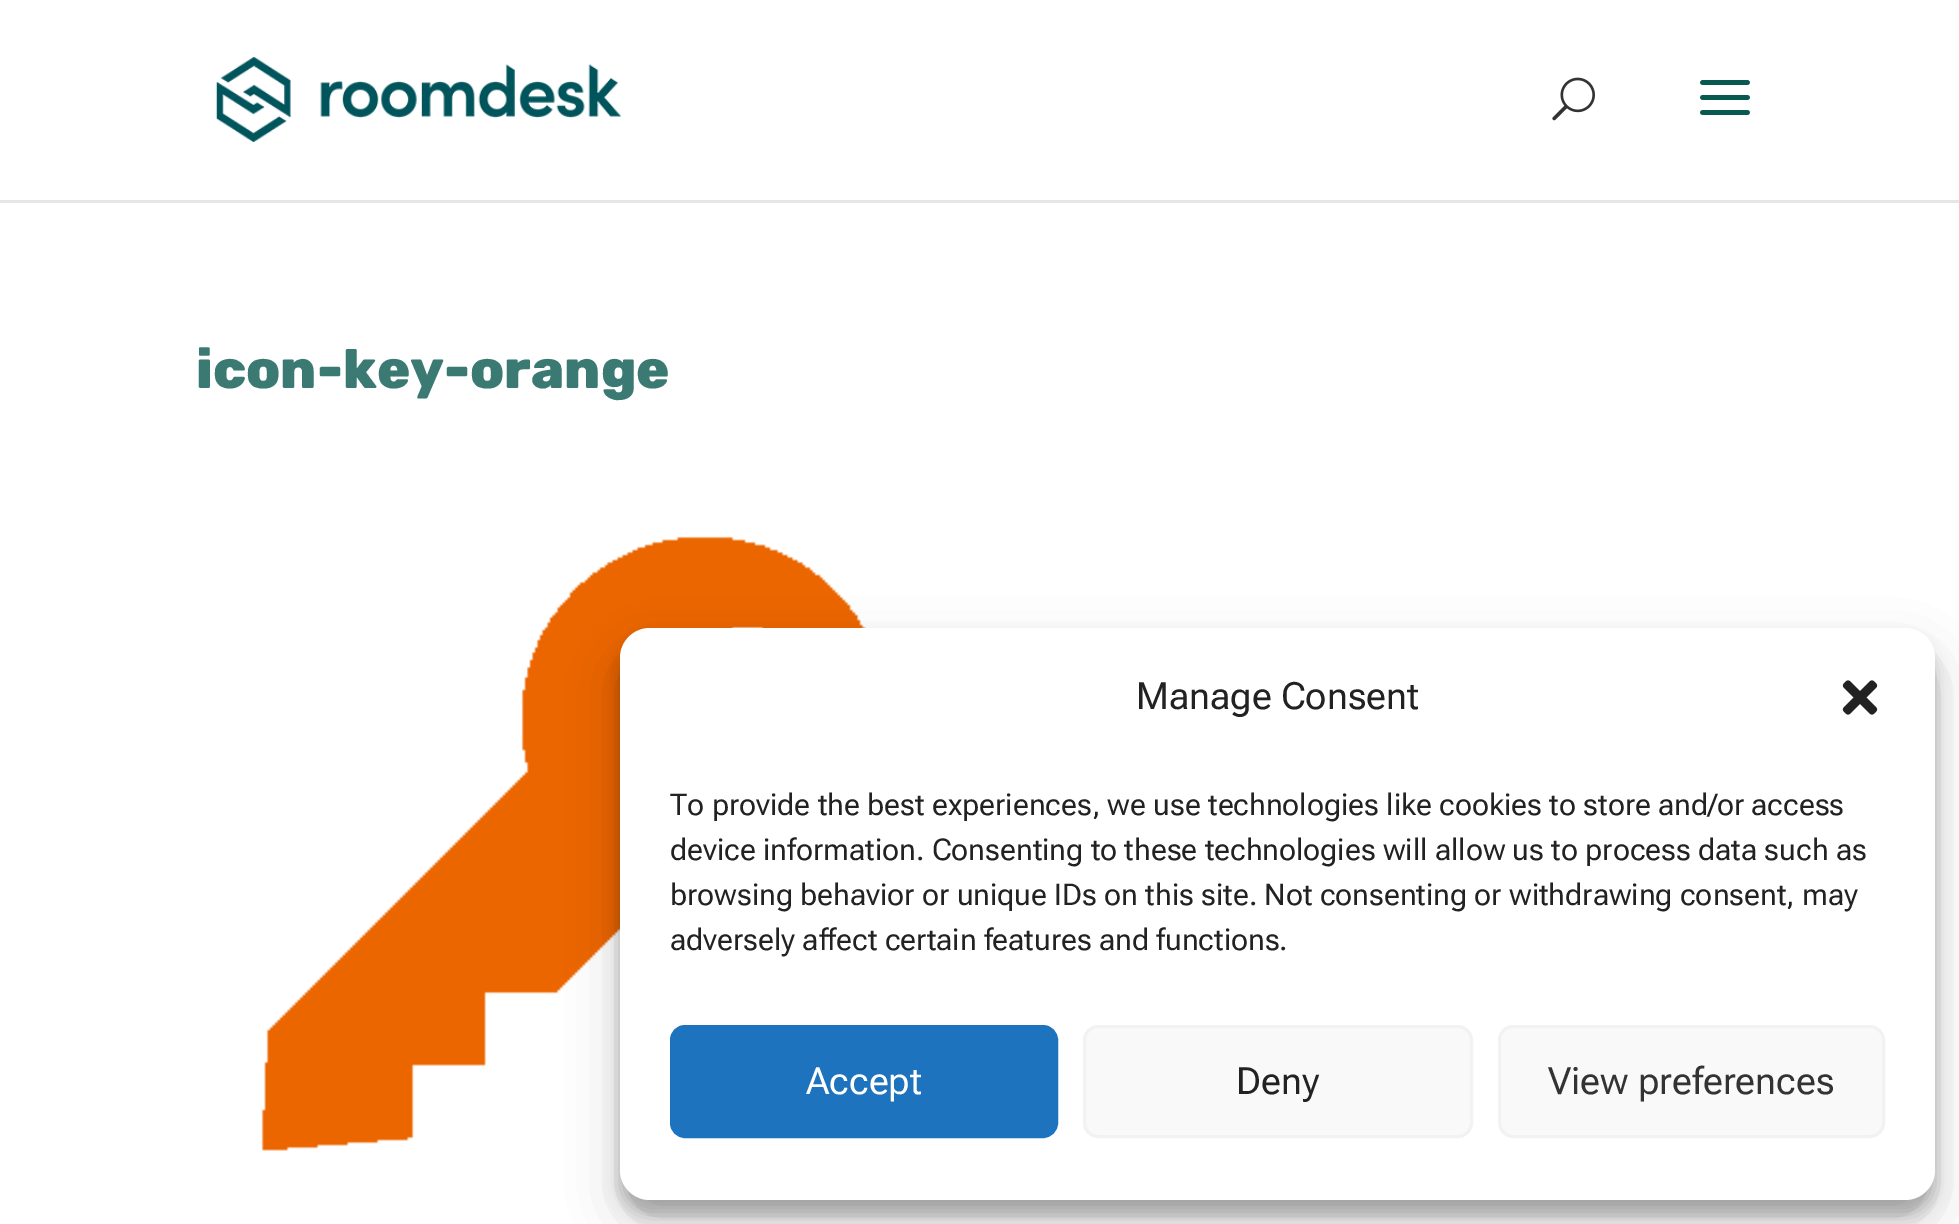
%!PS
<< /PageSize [1959 1224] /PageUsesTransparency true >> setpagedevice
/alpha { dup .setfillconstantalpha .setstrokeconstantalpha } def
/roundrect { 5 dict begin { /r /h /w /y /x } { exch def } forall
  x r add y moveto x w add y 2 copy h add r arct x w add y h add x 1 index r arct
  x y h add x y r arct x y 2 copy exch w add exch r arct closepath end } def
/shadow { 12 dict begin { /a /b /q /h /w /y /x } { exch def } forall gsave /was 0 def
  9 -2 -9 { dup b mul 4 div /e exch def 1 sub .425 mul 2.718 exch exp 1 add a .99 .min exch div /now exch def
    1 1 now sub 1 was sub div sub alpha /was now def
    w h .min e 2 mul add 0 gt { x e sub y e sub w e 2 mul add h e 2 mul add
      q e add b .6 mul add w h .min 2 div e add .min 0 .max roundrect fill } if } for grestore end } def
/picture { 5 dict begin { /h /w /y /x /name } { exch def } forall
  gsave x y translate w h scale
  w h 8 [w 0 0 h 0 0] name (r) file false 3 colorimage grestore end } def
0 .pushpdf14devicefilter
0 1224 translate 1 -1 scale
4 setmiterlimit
1 setgray
0 0 1959 1224 rectfill
0.902 setgray
0 200 1959 3 rectfill
(img1.rgb) 216 57 405 85 picture
(img2.rgb) 1552 77 43 44 picture
(img3.rgb) 1700 80 50 35 picture
/Rubik-ExtraBold [55 0 0 -55 0 0] selectfont
0.227 0.478 0.451 setrgbcolor
196 388 moveto (icon-key-orange) show
(img4.rgb) 261 536 605 615 picture
0 setgray
620 643 1315 572 30 7.5 0.23 shadow
620 653 1315 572 30 25 0.19 shadow
1 setgray
620 628 1315 572 30 roundrect fill
/RobotoFlex-Regular [37.5 0 0 -37.5 0 0] selectfont
0.133 setgray
1136 709 moveto (Manage Consent) show
(img5.rgb) 1842 680 36 35 picture
/RobotoFlex-Regular [30 0 0 -30 0 0] selectfont
670 815 moveto (To provide the best experiences, we use technologies like cookies to store and/or access) show
670 860 moveto (device information. Consenting to these technologies will allow us to process data such as) show
670 905 moveto (browsing behavior or unique IDs on this site. Not consenting or withdrawing consent, may) show
670 950 moveto (adversely affect certain features and functions.) show
0.118 0.451 0.745 setrgbcolor
671.5 1026.5 385 110 13.5 roundrect gsave fill grestore
3 setlinewidth
stroke
/RobotoFlex-Regular [37.5 0 0 -37.5 0 0] selectfont
1 setgray
806 1094 moveto (Accept) show
0.976 setgray
1084.5 1026.5 387 110 13.5 roundrect gsave fill grestore
0.949 setgray
stroke
0.133 setgray
1236 1094 moveto (Deny) show
0.976 setgray
1499.5 1026.5 384 110 13.5 roundrect gsave fill grestore
0.949 setgray
stroke
0.2 setgray
1548 1094 moveto (View preferences) show
.poppdf14devicefilter showpage
